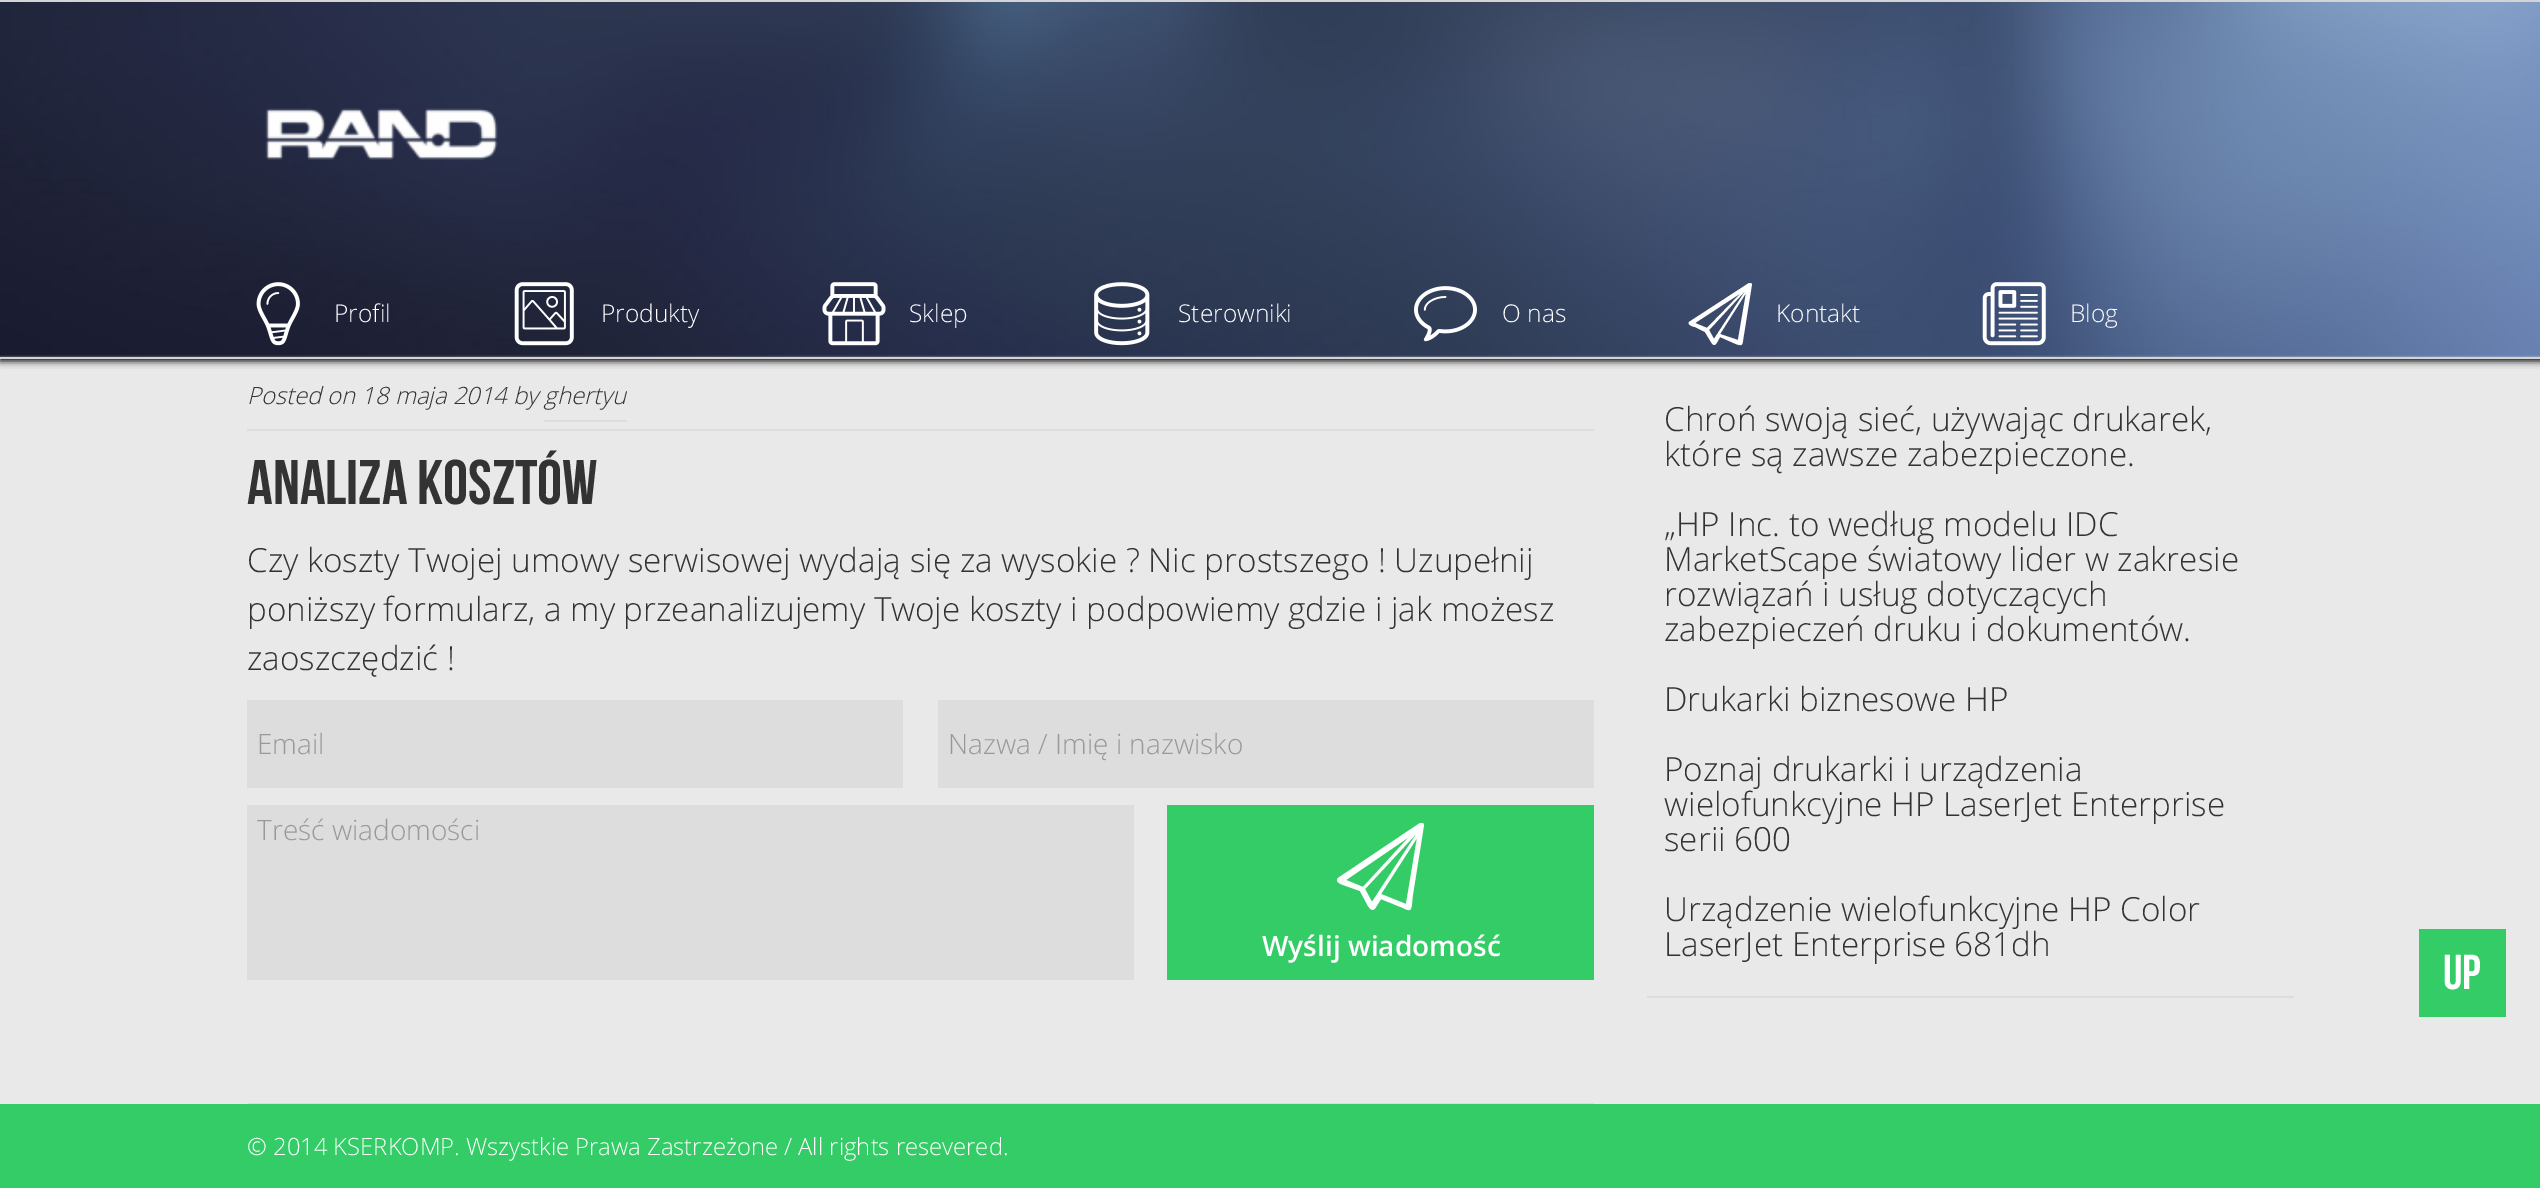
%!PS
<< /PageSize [2540 1188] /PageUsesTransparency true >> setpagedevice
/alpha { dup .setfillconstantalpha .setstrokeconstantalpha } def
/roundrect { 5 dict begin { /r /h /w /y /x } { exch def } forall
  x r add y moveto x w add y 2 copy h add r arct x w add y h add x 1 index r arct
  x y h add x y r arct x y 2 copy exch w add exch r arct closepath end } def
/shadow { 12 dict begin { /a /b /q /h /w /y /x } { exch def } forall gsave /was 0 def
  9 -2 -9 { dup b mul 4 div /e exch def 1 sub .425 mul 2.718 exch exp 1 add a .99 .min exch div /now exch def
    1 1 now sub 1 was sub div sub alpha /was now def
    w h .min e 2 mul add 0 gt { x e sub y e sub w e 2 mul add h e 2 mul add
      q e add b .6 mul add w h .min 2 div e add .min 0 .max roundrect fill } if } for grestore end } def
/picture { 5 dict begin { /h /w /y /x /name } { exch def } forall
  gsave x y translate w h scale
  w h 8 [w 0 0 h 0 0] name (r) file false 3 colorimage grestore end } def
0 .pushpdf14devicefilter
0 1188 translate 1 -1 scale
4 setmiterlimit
0.914 setgray
0 0 2540 1188 rectfill
0 setgray
0 2 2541 359 0 3.5 1 shadow
(img1.rgb) 0 2 2540 355 picture
0.831 setgray
0 0 2540 2 rectfill
0 357 2540 2 rectfill
(img2.rgb) 265 108 233 52 picture
(img3.rgb) 256 282 44 64 picture
/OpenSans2-Light [24.5 0 0 -24.5 0 0] selectfont
1 setgray
334 322 moveto (Profil) show
(img4.rgb) 514 282 60 64 picture
601 322 moveto (Produkty) show
(img5.rgb) 822 282 64 64 picture
909 322 moveto (Sklep) show
(img6.rgb) 1094 282 56 64 picture
1178 322 moveto (Sterowniki) show
(img7.rgb) 1414 286 63 56 picture
1502 322 moveto (O nas) show
newpath 1751 283 moveto 1752 284 lineto 1744 334 lineto 1742 344 1744 347 1736 344 curveto 1720 337 lineto 1717 342 1715 349 1711 342 curveto 1705 332 lineto 1695 327 lineto 1694 327 1687 325 1689 322 curveto 1749 283 lineto closepath 1695 323 moveto 1707 328 lineto 1741 293 lineto closepath 1709 330 moveto 1714 339 lineto 1746 290 lineto closepath 1738 340 moveto 1746 293 lineto 1720 334 lineto closepath fill
1776 322 moveto (Kontakt) show
(img8.rgb) 1982 282 64 64 picture
2070 322 moveto (Blog) show
0.867 setgray
247 429 1347 2 rectfill
/OpenSans-LightItalic [23.8 0 0 -23.8 0 0] selectfont
0.2 setgray
247 404 moveto (Posted on 18 maja 2014 by ghertyu) show
0.867 setgray
544 420 83 2 rectfill
247 1103 1347 1 rectfill
/BebasNeue-Regular [63 0 0 -63 0 0] selectfont
0.2 setgray
247 504 moveto (Analiza kosztów) show
/OpenSans2-Light [33.25 0 0 -33.25 0 0] selectfont
247 572 moveto (Czy koszty Twojej umowy serwisowej wydają się za wysokie ? Nic prostszego ! Uzupełnij) show
247 621 moveto (poniższy formularz, a my przeanalizujemy Twoje koszty i podpowiemy gdzie i jak możesz) show
247 670 moveto (zaoszczędzić !) show
0.867 setgray
247 700 656 88 rectfill
/OpenSans-Light [28 0 0 -28 0 0] selectfont
0.6 setgray
257 754 moveto (Email) show
0.867 setgray
938 700 656 88 rectfill
0.6 setgray
948 754 moveto (Nazwa / Imię i nazwisko) show
0.867 setgray
247 805 887 175 rectfill
0.6 setgray
257 840 moveto (Treść wiadomości) show
0.2 0.8 0.4 setrgbcolor
1167 805 427 175 rectfill
1 setgray
newpath 1423 823 moveto 1424 825 lineto 1413 894 lineto 1411 909 1413 913 1403 908 curveto 1381 899 lineto 1376 907 lineto 1373 912 1371 910 1368 906 curveto 1360 891 lineto 1346 886 lineto 1344 885 1334 883 1338 878 curveto 1420 823 lineto 1421 823 1422 823 1423 823 curveto closepath 1346 880 moveto 1363 887 lineto 1409 837 lineto closepath 1365 889 moveto 1372 902 lineto 1417 833 lineto closepath 1406 904 moveto 1417 838 lineto 1381 894 lineto closepath fill
/OpenSans-SemiBold [28 0 0 -28 0 0] selectfont
1262 956 moveto (Wyślij wiadomość) show
0.867 setgray
1647 996 647 2 rectfill
/OpenSans2-Light [33.25 0 0 -33.25 0 0] selectfont
0.2 setgray
1664 431 moveto (Chroń swoją sieć, używając drukarek,) show
1664 466 moveto (które są zawsze zabezpieczone.) show
1664 536 moveto („HP Inc. to według modelu IDC) show
1664 571 moveto (MarketScape światowy lider w zakresie) show
1664 606 moveto (rozwiązań i usług dotyczących) show
1664 641 moveto (zabezpieczeń druku i dokumentów.) show
1664 711 moveto (Drukarki biznesowe HP) show
1664 781 moveto (Poznaj drukarki i urządzenia) show
1664 816 moveto (wielofunkcyjne HP LaserJet Enterprise) show
1664 851 moveto (serii 600) show
1664 921 moveto (Urządzenie wielofunkcyjne HP Color) show
1664 956 moveto (LaserJet Enterprise 681dh) show
0.2 0.8 0.4 setrgbcolor
0 1104 2540 84 rectfill
2419 929 87 88 rectfill
/BebasNeue-Regular [49 0 0 -49 0 0] selectfont
1 setgray
2443 989 moveto (UP) show
/OpenSans2-Light [23.8 0 0 -23.8 0 0] selectfont
247 1155 moveto (© 2014 KSERKOMP. Wszystkie Prawa Zastrzeżone / All rights resevered.) show
.poppdf14devicefilter showpage
